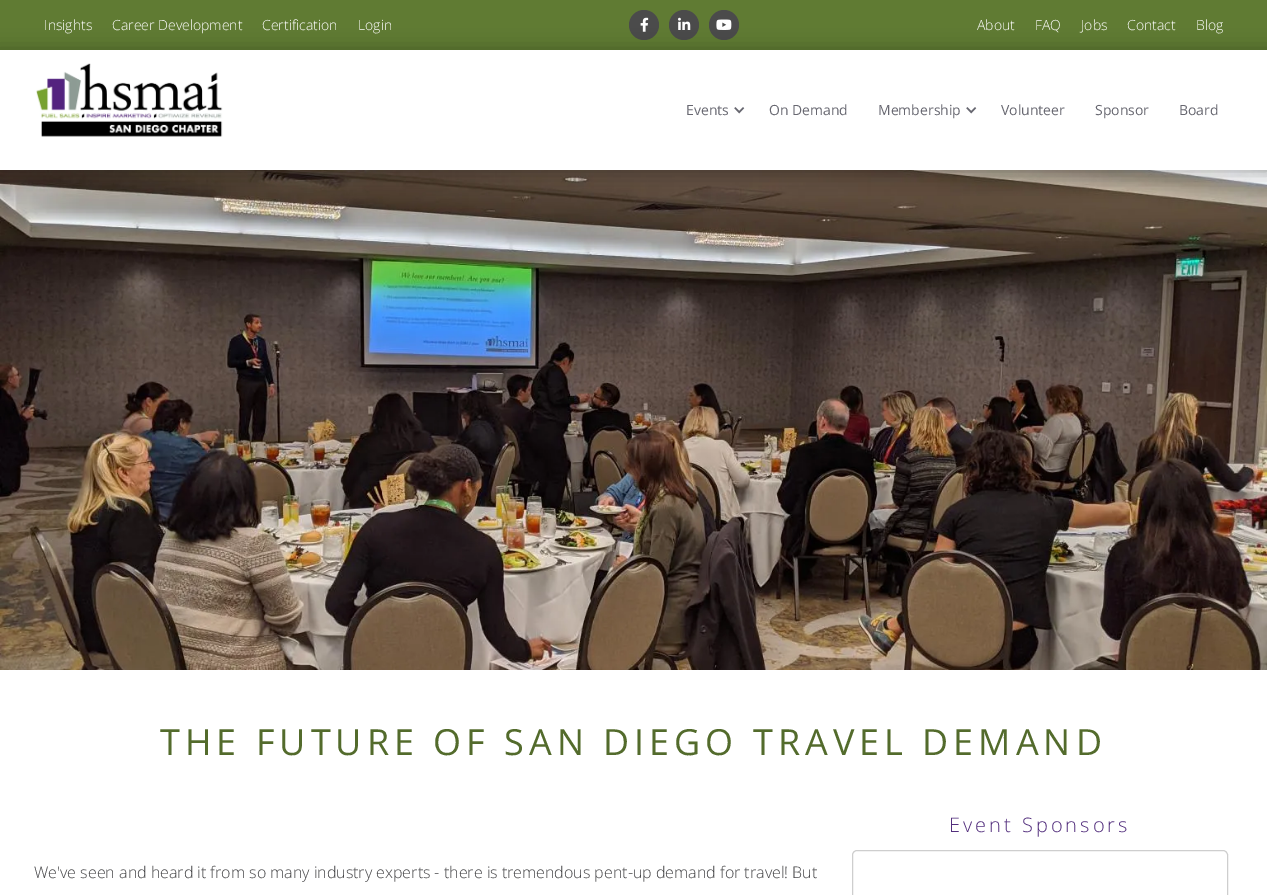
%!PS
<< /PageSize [1267 895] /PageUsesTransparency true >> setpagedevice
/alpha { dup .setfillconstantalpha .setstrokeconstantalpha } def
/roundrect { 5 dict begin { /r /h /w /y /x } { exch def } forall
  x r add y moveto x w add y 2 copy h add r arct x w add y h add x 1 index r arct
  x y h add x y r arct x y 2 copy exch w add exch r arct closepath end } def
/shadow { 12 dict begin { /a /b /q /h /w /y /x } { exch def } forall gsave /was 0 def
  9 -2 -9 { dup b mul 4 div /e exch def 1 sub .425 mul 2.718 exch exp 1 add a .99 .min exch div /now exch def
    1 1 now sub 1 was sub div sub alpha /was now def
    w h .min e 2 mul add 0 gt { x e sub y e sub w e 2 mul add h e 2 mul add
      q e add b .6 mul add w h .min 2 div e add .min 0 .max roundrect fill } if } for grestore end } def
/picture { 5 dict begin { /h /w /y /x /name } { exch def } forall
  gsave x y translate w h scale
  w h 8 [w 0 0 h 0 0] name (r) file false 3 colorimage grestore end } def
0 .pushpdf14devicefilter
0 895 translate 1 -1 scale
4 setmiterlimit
1 setgray
0 0 1267 895 rectfill
0.376 0.482 0.2 setrgbcolor
0 0 1267 50 rectfill
/OpenSans-Light [14 0 0 -14 0 0] selectfont
1 setgray
44 30 moveto (Insights) show
112 30 moveto (Career Development) show
262 30 moveto (Certification) show
358 30 moveto (Login) show
0.294 setgray
newpath 644 25 15 0 360 arc closepath fill
(img1.rgb) 640 17 9 15 picture
newpath 684 25 15 0 360 arc closepath fill
(img2.rgb) 678 17 13 13 picture
newpath 724 25 15 0 360 arc closepath fill
(img3.rgb) 716 19 16 11 picture
1 setgray
977 30 moveto (About) show
1035 30 moveto (FAQ) show
1081 30 moveto (Jobs) show
1127 30 moveto (Contact) show
1196 30 moveto (Blog) show
(img6.rgb) 0 170 1267 500 picture
gsave
newpath 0 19 moveto 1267 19 lineto 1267 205 lineto 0 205 lineto closepath 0 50 moveto 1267 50 lineto 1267 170 lineto 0 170 lineto closepath eoclip newpath
0 setgray
-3 49 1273 126 0 9.5 0.25 shadow
grestore
(img4.rgb) 36 63 187 74 picture
/OpenSans-Regular [14 0 0 -14 0 0] selectfont
0.404 0.404 0.439 setrgbcolor
686 115 moveto (Events) show
(img5.rgb) 734 107 11 7 picture
769 115 moveto (On Demand) show
878 115 moveto (Membership) show
(img5.rgb) 966 107 11 7 picture
1001 115 moveto (Volunteer) show
1095 115 moveto (Sponsor) show
1179 115 moveto (Board) show
/OpenSans-Regular [36 0 0 -36 0 0] selectfont
0.325 0.42 0.173 setrgbcolor
160 755 moveto 5 0 (THE FUTURE OF SAN DIEGO TRAVEL DEMAND) ashow
/OpenSans-Light [20 0 0 -20 0 0] selectfont
0.325 0.184 0.49 setrgbcolor
949 832 moveto 3 0 (Event Sponsors) ashow
0.808 setgray
852.5 850.5 375 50 4.5 roundrect stroke
/OpenSans-Light [16 0 0 -16 0 0] selectfont
0.263 0.263 0.271 setrgbcolor
34 878 moveto (We've seen and heard it from so many industry experts - there is tremendous pent-up demand for travel! But) show
.poppdf14devicefilter showpage
